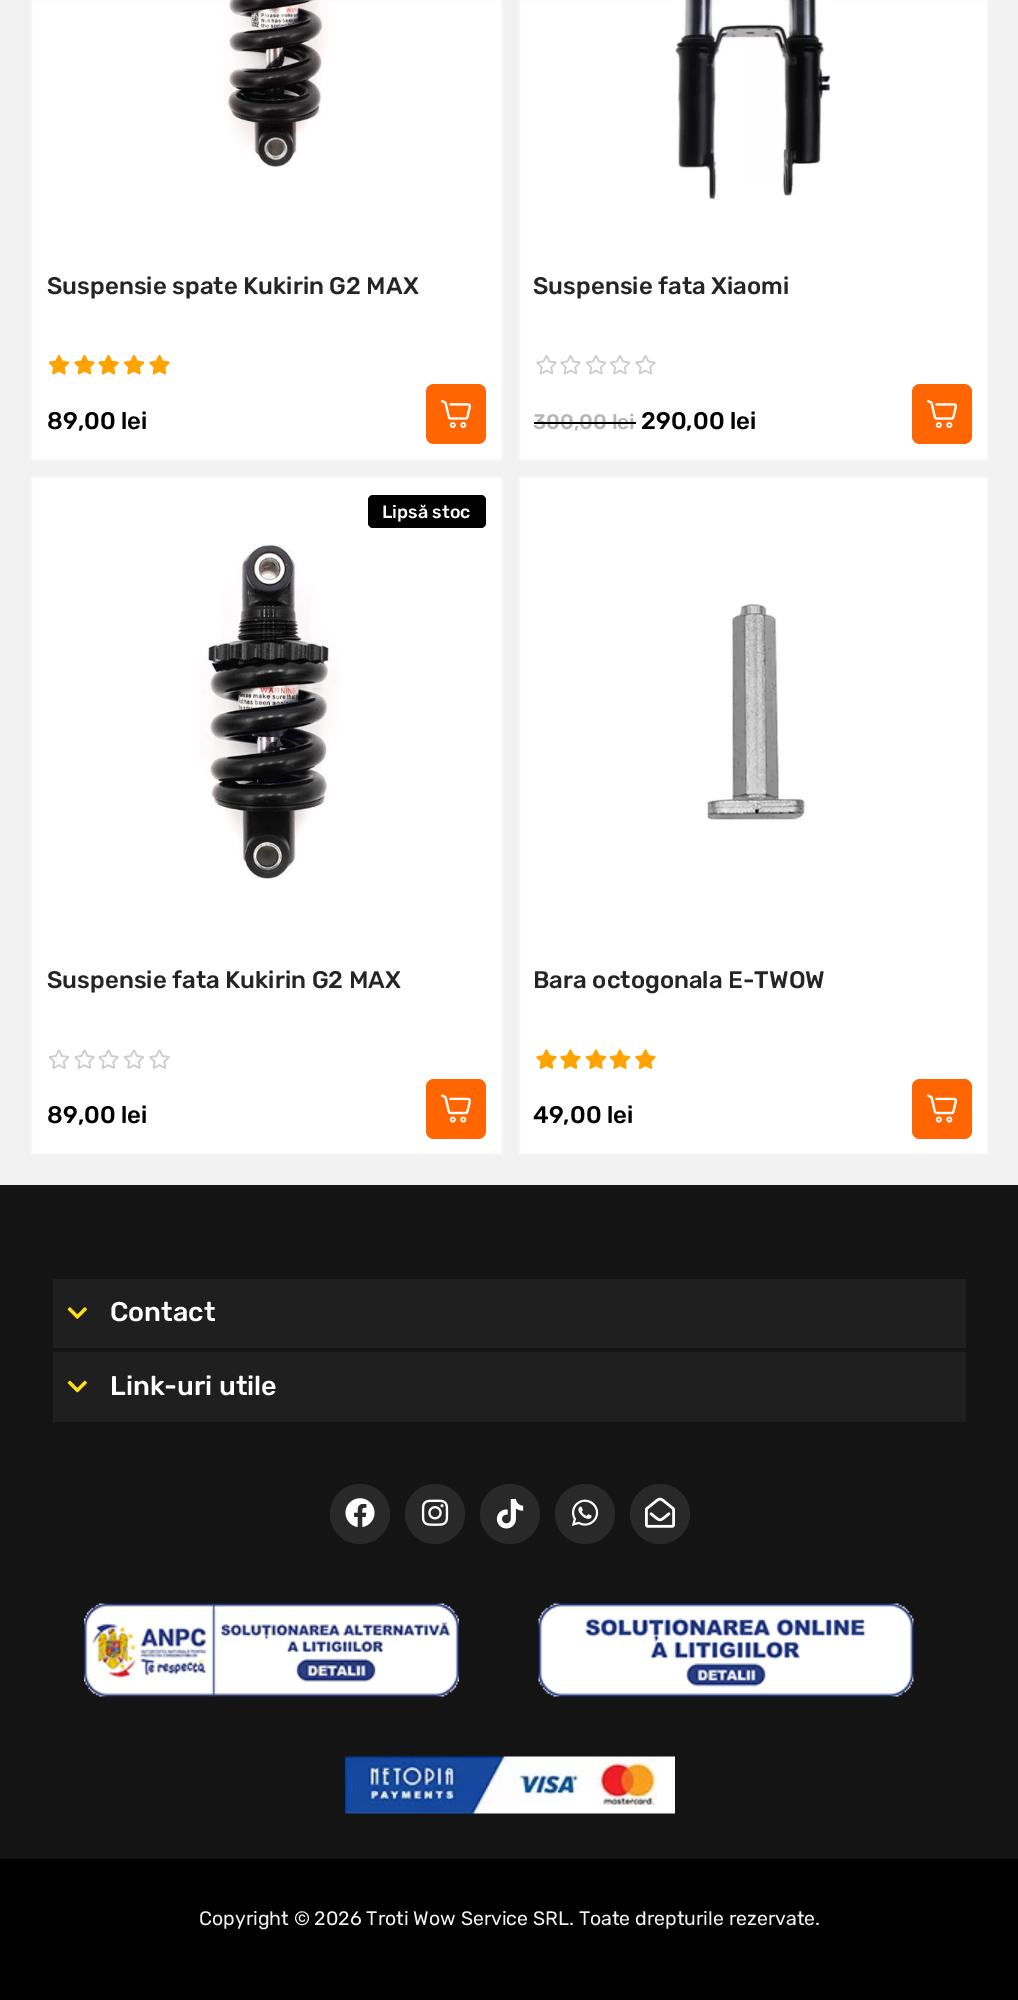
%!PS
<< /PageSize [1018 2000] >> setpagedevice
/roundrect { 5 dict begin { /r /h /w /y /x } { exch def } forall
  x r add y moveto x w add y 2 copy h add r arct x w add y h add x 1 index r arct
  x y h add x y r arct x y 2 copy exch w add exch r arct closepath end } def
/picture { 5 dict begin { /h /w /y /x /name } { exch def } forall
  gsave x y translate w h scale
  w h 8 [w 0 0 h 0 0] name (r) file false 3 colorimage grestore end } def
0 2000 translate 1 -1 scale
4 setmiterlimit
0.949 setgray
0 0 1018 2000 rectfill
1 setgray
newpath 31 -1 moveto 502 -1 lineto 502 460 lineto 31 460 lineto closepath gsave fill grestore
0.969 setgray
2 setlinewidth
stroke
(img1.rgb) 223 0 105 167 picture
/Rubik-Medium [24 0 0 -24 0 0] selectfont
0.145 setgray
47 294 moveto (Suspensie spate Kukirin G2 MAX) show
(img2.rgb) 48 355 22 20 picture
(img3.rgb) 74 355 21 20 picture
(img3.rgb) 98 355 21 20 picture
(img2.rgb) 123 355 22 20 picture
(img3.rgb) 149 355 21 20 picture
0 setgray
47 429 moveto (89,00 lei) show
1 0.396 0 setrgbcolor
426 384 60 60 8 roundrect fill
(img4.rgb) 441 400 31 29 picture
1 setgray
newpath 519 -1 moveto 988 -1 lineto 988 460 lineto 519 460 lineto closepath gsave fill grestore
0.969 setgray
stroke
(img5.rgb) 675 0 156 200 picture
0.145 setgray
533 294 moveto (Suspensie fata Xiaomi) show
(img6.rgb) 536 355 21 20 picture
(img6.rgb) 560 355 21 20 picture
(img7.rgb) 585 355 22 20 picture
(img7.rgb) 609 355 22 20 picture
(img6.rgb) 635 355 21 20 picture
/Rubik-Medium [21 0 0 -21 0 0] selectfont
0.714 setgray
533 429 moveto (300,00 lei) show
0 setgray
534 422 102 2 rectfill
/Rubik-Medium [24 0 0 -24 0 0] selectfont
641 429 moveto (290,00 lei) show
1 0.396 0 setrgbcolor
912 384 60 60 8 roundrect fill
(img4.rgb) 927 400 31 29 picture
1 setgray
newpath 31 477 moveto 502 477 lineto 502 1154 lineto 31 1154 lineto closepath gsave fill grestore
0.969 setgray
stroke
0 setgray
368 495 118 33 5 roundrect fill
/Rubik-Medium [18 0 0 -18 0 0] selectfont
1 setgray
382 518 moveto (Lipsă stoc) show
(img8.rgb) 199 544 141 335 picture
/Rubik-Medium [24 0 0 -24 0 0] selectfont
0.145 setgray
47 988 moveto (Suspensie fata Kukirin G2 MAX) show
(img9.rgb) 48 1049 21 20 picture
(img10.rgb) 74 1049 21 20 picture
(img10.rgb) 98 1049 21 20 picture
(img9.rgb) 123 1049 21 20 picture
(img10.rgb) 149 1049 21 20 picture
0 setgray
47 1123 moveto (89,00 lei) show
1 0.396 0 setrgbcolor
426 1079 60 60 8 roundrect fill
(img11.rgb) 441 1094 31 29 picture
1 setgray
newpath 519 477 moveto 988 477 lineto 988 1154 lineto 519 1154 lineto closepath gsave fill grestore
0.969 setgray
stroke
(img12.rgb) 706 603 100 217 picture
0.145 setgray
533 988 moveto (Bara octogonala E-TWOW) show
(img13.rgb) 536 1049 21 20 picture
(img13.rgb) 560 1049 21 20 picture
(img14.rgb) 585 1049 22 20 picture
(img14.rgb) 609 1049 22 20 picture
(img13.rgb) 635 1049 21 20 picture
0 setgray
533 1123 moveto (49,00 lei) show
1 0.396 0 setrgbcolor
912 1079 60 60 8 roundrect fill
(img11.rgb) 927 1094 31 29 picture
0.078 setgray
0 1185 1018 674 rectfill
0.122 setgray
53 1279 913 69 rectfill
(img15.rgb) 67 1307 20 12 picture
/Rubik-Medium [27 0 0 -27 0 0] selectfont
1 setgray
110 1321 moveto (Contact) show
0.122 setgray
53 1352 913 70 rectfill
(img16.rgb) 67 1380 20 13 picture
1 setgray
110 1395 moveto (Link-uri utile) show
0.161 setgray
newpath 360 1514 30 0 360 arc closepath fill
(img17.rgb) 345 1498 30 30 picture
newpath 435 1514 30 0 360 arc closepath fill
(img18.rgb) 421 1499 28 27 picture
newpath 510 1514 30 0 360 arc closepath fill
(img19.rgb) 496 1499 28 30 picture
newpath 585 1514 30 0 360 arc closepath fill
(img20.rgb) 571 1499 28 27 picture
newpath 660 1514 30 0 360 arc closepath fill
(img21.rgb) 645 1497 30 31 picture
(img22.rgb) 84 1603 375 94 picture
(img23.rgb) 538 1603 376 94 picture
(img24.rgb) 345 1756 330 58 picture
0 setgray
0 1859 1018 141 rectfill
/Rubik-Regular [19.5 0 0 -19.5 0 0] selectfont
0.949 setgray
199 1925 moveto (Copyright © 2026 Troti Wow Service SRL. Toate drepturile rezervate.) show
showpage
